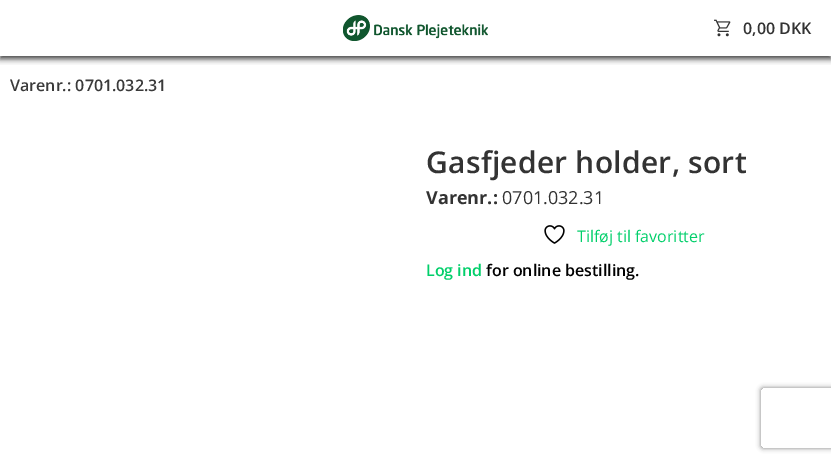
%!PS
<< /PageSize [831 462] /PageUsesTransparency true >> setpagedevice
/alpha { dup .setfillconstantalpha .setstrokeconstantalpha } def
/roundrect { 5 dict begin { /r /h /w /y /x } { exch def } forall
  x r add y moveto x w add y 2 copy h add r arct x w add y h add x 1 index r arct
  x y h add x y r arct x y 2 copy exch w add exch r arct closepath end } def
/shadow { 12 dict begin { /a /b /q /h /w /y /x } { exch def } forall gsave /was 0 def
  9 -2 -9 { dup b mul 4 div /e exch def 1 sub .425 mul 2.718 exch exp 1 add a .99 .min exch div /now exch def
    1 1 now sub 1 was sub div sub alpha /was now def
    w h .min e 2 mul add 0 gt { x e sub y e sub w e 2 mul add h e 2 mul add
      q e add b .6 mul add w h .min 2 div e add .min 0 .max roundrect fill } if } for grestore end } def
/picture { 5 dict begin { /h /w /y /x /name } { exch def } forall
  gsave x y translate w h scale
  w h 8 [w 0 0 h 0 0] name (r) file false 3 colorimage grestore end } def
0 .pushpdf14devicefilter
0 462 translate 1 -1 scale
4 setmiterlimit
1 setgray
0 0 831 462 rectfill
gsave
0 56 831 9 rectclip
0 setgray
0 3 831 56 0 3 0.75 shadow
grestore
(img1.rgb) 343 15 145 26 picture
(img2.rgb) 714 19 17 18 picture
/OpenSans-SemiBold [16 0 0 -16 0 0] selectfont
0.2 setgray
743 34 moveto (0,00 DKK) show
0.227 setgray
10 91 moveto (Varenr.: 0701.032.31) show
/OpenSans-SemiBold [30 0 0 -30 0 0] selectfont
0.2 setgray
426 173 moveto 0.25 0 (Gasfjeder holder, sort) ashow
/OpenSans-Bold [18 0 0 -18 0 0] selectfont
426 204 moveto (Varenr.:) show
/OpenSans-Regular [18 0 0 -18 0 0] selectfont
502 204 moveto (0701.032.31) show
(img3.rgb) 544 225 21 19 picture
/OpenSans-Regular [16 0 0 -16 0 0] selectfont
0.004 0.812 0.416 setrgbcolor
577 242 moveto (Tilføj til favoritter) show
/OpenSans-SemiBold [16 0 0 -16 0 0] selectfont
426 276 moveto (Log ind) show
0 setgray
486 276 moveto (for online bestilling.) show
gsave
newpath 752 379 moveto 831 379 lineto 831 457 lineto 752 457 lineto closepath 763 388 moveto 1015 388 lineto 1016 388 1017 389 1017 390 curveto 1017 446 lineto 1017 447 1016 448 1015 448 curveto 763 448 lineto 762 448 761 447 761 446 curveto 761 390 lineto 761 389 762 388 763 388 curveto closepath eoclip newpath
0.502 setgray
761 388 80 60 2 2.5 1 shadow
grestore
.poppdf14devicefilter showpage
